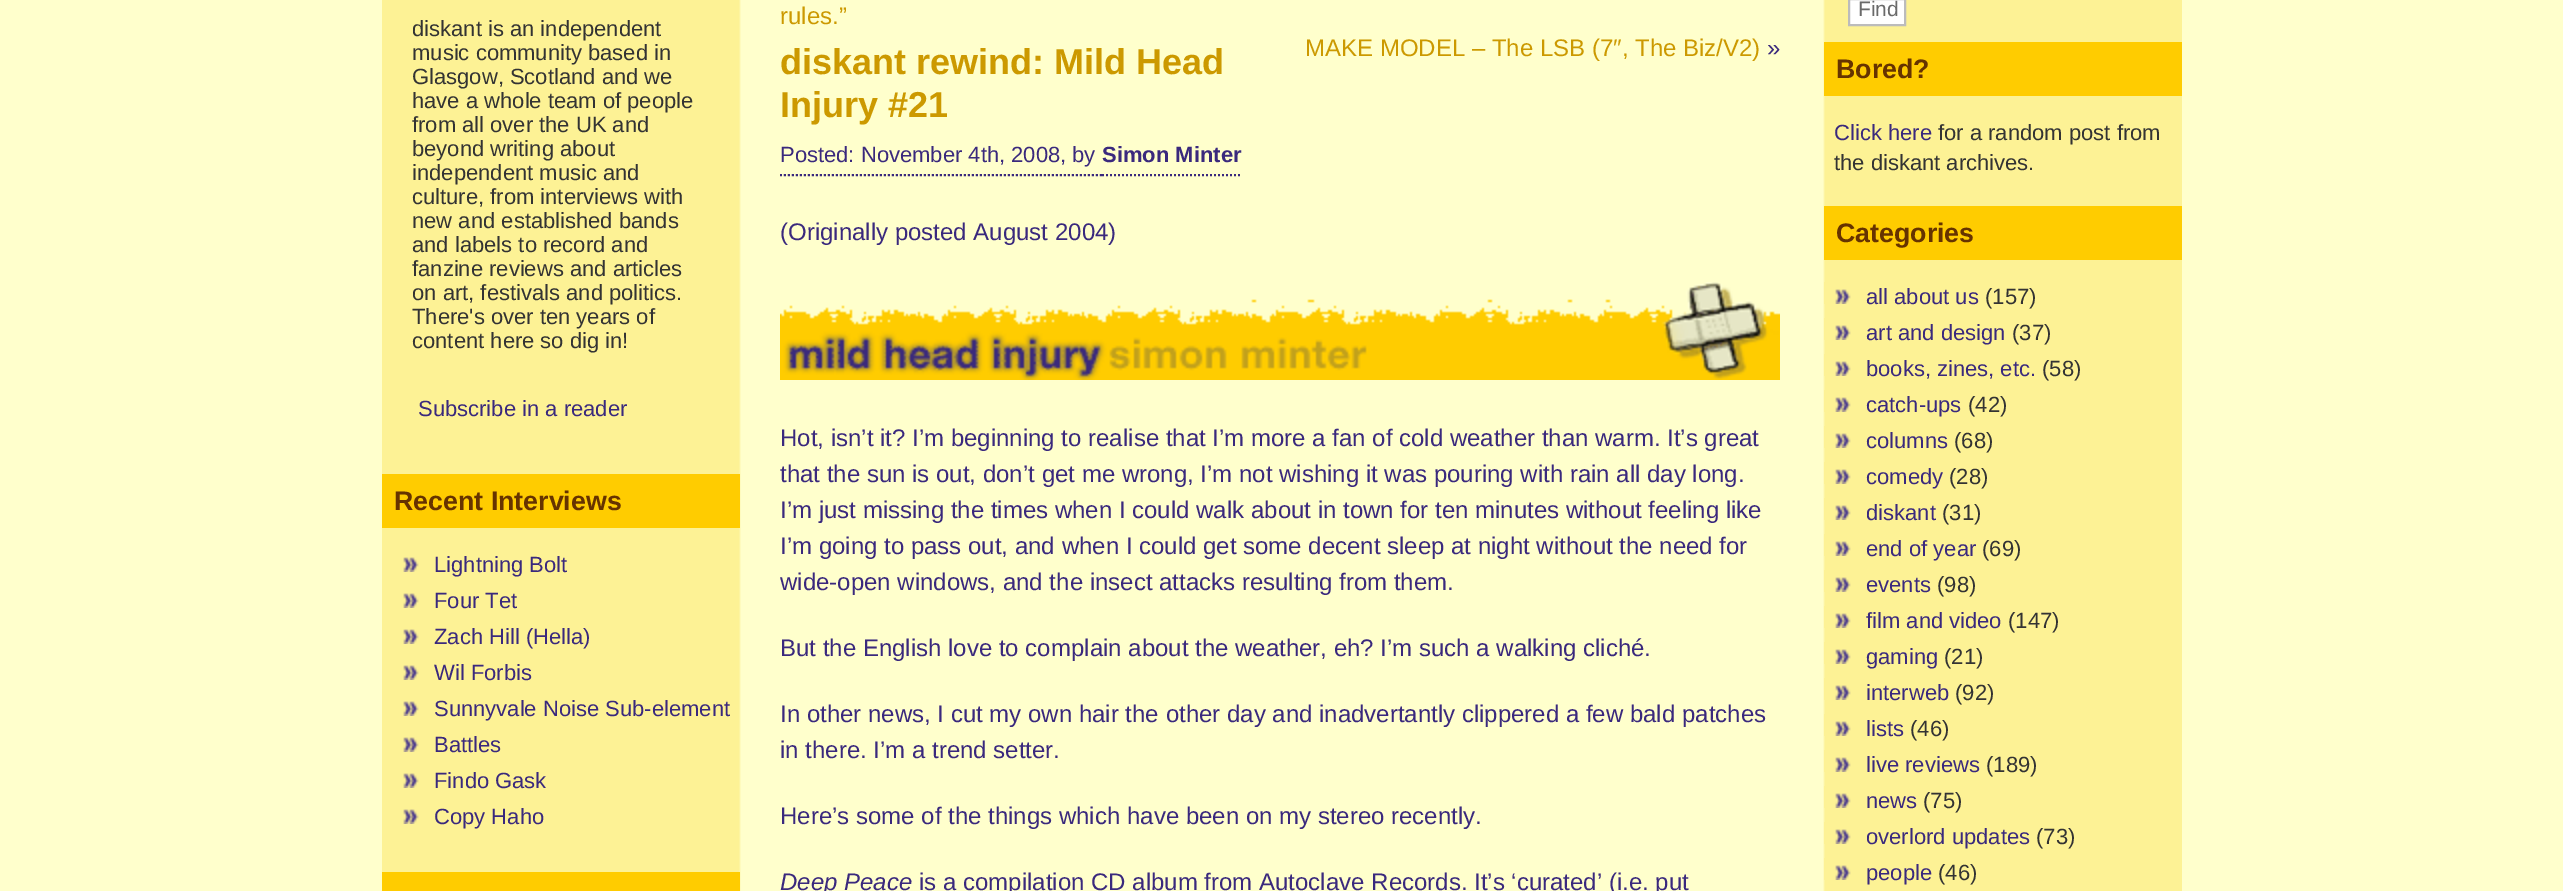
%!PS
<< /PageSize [2563 891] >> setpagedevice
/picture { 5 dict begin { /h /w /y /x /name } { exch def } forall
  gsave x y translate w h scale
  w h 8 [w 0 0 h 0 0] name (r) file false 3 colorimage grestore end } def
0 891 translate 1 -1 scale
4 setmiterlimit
1 1 0.8 setrgbcolor
0 0 2563 891 rectfill
(img1.rgb) 382 0 1800 891 picture
/LiberationSans-Regular [22 0 0 -22 0 0] selectfont
0.2 setgray
412 36 moveto (diskant is an independent) show
412 60 moveto (music community based in) show
412 84 moveto (Glasgow, Scotland and we) show
412 108 moveto (have a whole team of people) show
412 132 moveto (from all over the UK and) show
412 156 moveto (beyond writing about) show
412 180 moveto (independent music and) show
412 204 moveto (culture, from interviews with) show
412 228 moveto (new and established bands) show
412 252 moveto (and labels to record and) show
412 276 moveto (fanzine reviews and articles) show
412 300 moveto (on art, festivals and politics.) show
412 324 moveto (There's over ten years of) show
412 348 moveto (content here so dig in!) show
0.227 0.161 0.49 setrgbcolor
418 416 moveto (Subscribe in a reader) show
1 0.8 0 setrgbcolor
382 474 358 54 rectfill
/LiberationSans-Bold [26.75 0 0 -26.75 0 0] selectfont
0.4 0.2 0 setrgbcolor
394 510 moveto (Recent Interviews) show
(img2.rgb) 403 557 16 15 picture
/LiberationSans-Regular [22 0 0 -22 0 0] selectfont
0.227 0.161 0.49 setrgbcolor
434 572 moveto (Lightning Bolt) show
(img2.rgb) 403 593 16 15 picture
434 608 moveto (Four Tet) show
(img2.rgb) 403 629 16 15 picture
434 644 moveto (Zach Hill \(Hella\)) show
(img2.rgb) 403 665 16 15 picture
434 680 moveto (Wil Forbis) show
(img2.rgb) 403 701 16 15 picture
434 716 moveto (Sunnyvale Noise Sub-element) show
(img2.rgb) 403 737 16 15 picture
434 752 moveto (Battles) show
(img2.rgb) 403 773 16 15 picture
434 788 moveto (Findo Gask) show
(img2.rgb) 403 809 16 15 picture
434 824 moveto (Copy Haho) show
1 0.8 0 setrgbcolor
382 872 358 19 rectfill
/LiberationSans-Regular [24 0 0 -24 0 0] selectfont
0.8 0.6 0 setrgbcolor
780 24 moveto (rules.”) show
1305 56 moveto (MAKE MODEL – The LSB \(7″, The Biz/V2\)) show
0.227 0.161 0.49 setrgbcolor
1767 56 moveto (») show
/LiberationSans-Bold [36 0 0 -36 0 0] selectfont
0.8 0.6 0 setrgbcolor
780 74 moveto (diskant rewind: Mild Head) show
780 117 moveto (Injury #21) show
/LiberationSans-Regular [22 0 0 -22 0 0] selectfont
0.227 0.161 0.49 setrgbcolor
780 162 moveto (Posted: November 4th, 2008, by) show
2 setlinewidth
[2 2] 0 setdash
newpath 780 175 moveto 1102 175 lineto stroke
/LiberationSans-Bold [22 0 0 -22 0 0] selectfont
1102 162 moveto (Simon Minter) show
newpath 1102 175 moveto 1242 175 lineto stroke
/LiberationSans-Regular [24 0 0 -24 0 0] selectfont
780 240 moveto (\(Originally posted August 2004\)) show
(img3.rgb) 780 282 1000 98 picture
780 446 moveto (Hot, isn’t it? I’m beginning to realise that I’m more a fan of cold weather than warm. It’s great) show
780 482 moveto (that the sun is out, don’t get me wrong, I’m not wishing it was pouring with rain all day long.) show
780 518 moveto (I’m just missing the times when I could walk about in town for ten minutes without feeling like) show
780 554 moveto (I’m going to pass out, and when I could get some decent sleep at night without the need for) show
780 590 moveto (wide-open windows, and the insect attacks resulting from them.) show
780 656 moveto (But the English love to complain about the weather, eh? I’m such a walking cliché.) show
780 722 moveto (In other news, I cut my own hair the other day and inadvertantly clippered a few bald patches) show
780 758 moveto (in there. I’m a trend setter.) show
780 824 moveto (Here’s some of the things which have been on my stereo recently.) show
/LiberationSans-Italic [24 0 0 -24 0 0] selectfont
780 890 moveto (Deep Peace) show
/LiberationSans-Regular [24 0 0 -24 0 0] selectfont
919 890 moveto (is a compilation CD album from Autoclave Records. It’s ‘curated’ \(i.e. put) show
1 setgray
newpath 1849 -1 moveto 1905 -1 lineto 1905 25 lineto 1849 25 lineto closepath gsave fill grestore
0.737 setgray
[] 0 setdash
stroke
/LiberationSans-Regular [21 0 0 -21 0 0] selectfont
0.416 setgray
1858 16 moveto (Find) show
1 0.8 0 setrgbcolor
1824 42 358 54 rectfill
/LiberationSans-Bold [26.75 0 0 -26.75 0 0] selectfont
0.4 0.2 0 setrgbcolor
1836 78 moveto (Bored?) show
/LiberationSans-Regular [22 0 0 -22 0 0] selectfont
0.227 0.161 0.49 setrgbcolor
1834 140 moveto (Click here) show
0.2 setgray
1938 140 moveto (for a random post from) show
1834 170 moveto (the diskant archives.) show
1 0.8 0 setrgbcolor
1824 206 358 54 rectfill
/LiberationSans-Bold [26.75 0 0 -26.75 0 0] selectfont
0.4 0.2 0 setrgbcolor
1836 242 moveto (Categories) show
(img4.rgb) 1824 282 27 22 picture
/LiberationSans-Regular [22 0 0 -22 0 0] selectfont
0.227 0.161 0.49 setrgbcolor
1866 304 moveto (all about us) show
0.2 setgray
1985 304 moveto (\(157\)) show
(img4.rgb) 1824 318 27 22 picture
0.227 0.161 0.49 setrgbcolor
1866 340 moveto (art and design) show
0.2 setgray
2012 340 moveto (\(37\)) show
(img4.rgb) 1824 354 27 22 picture
0.227 0.161 0.49 setrgbcolor
1866 376 moveto (books, zines, etc.) show
0.2 setgray
2042 376 moveto (\(58\)) show
(img4.rgb) 1824 390 27 22 picture
0.227 0.161 0.49 setrgbcolor
1866 412 moveto (catch-ups) show
0.2 setgray
1968 412 moveto (\(42\)) show
(img4.rgb) 1824 426 27 22 picture
0.227 0.161 0.49 setrgbcolor
1866 448 moveto (columns) show
0.2 setgray
1954 448 moveto (\(68\)) show
(img4.rgb) 1824 462 27 22 picture
0.227 0.161 0.49 setrgbcolor
1866 484 moveto (comedy) show
0.2 setgray
1949 484 moveto (\(28\)) show
(img4.rgb) 1824 498 27 22 picture
0.227 0.161 0.49 setrgbcolor
1866 520 moveto (diskant) show
0.2 setgray
1942 520 moveto (\(31\)) show
(img4.rgb) 1824 534 27 22 picture
0.227 0.161 0.49 setrgbcolor
1866 556 moveto (end of year) show
0.2 setgray
1982 556 moveto (\(69\)) show
(img4.rgb) 1824 570 27 22 picture
0.227 0.161 0.49 setrgbcolor
1866 592 moveto (events) show
0.2 setgray
1937 592 moveto (\(98\)) show
(img4.rgb) 1824 606 27 22 picture
0.227 0.161 0.49 setrgbcolor
1866 628 moveto (film and video) show
0.2 setgray
2008 628 moveto (\(147\)) show
(img4.rgb) 1824 642 27 22 picture
0.227 0.161 0.49 setrgbcolor
1866 664 moveto (gaming) show
0.2 setgray
1944 664 moveto (\(21\)) show
(img4.rgb) 1824 678 27 22 picture
0.227 0.161 0.49 setrgbcolor
1866 700 moveto (interweb) show
0.2 setgray
1955 700 moveto (\(92\)) show
(img4.rgb) 1824 714 27 22 picture
0.227 0.161 0.49 setrgbcolor
1866 736 moveto (lists) show
0.2 setgray
1910 736 moveto (\(46\)) show
(img4.rgb) 1824 750 27 22 picture
0.227 0.161 0.49 setrgbcolor
1866 772 moveto (live reviews) show
0.2 setgray
1986 772 moveto (\(189\)) show
(img4.rgb) 1824 786 27 22 picture
0.227 0.161 0.49 setrgbcolor
1866 808 moveto (news) show
0.2 setgray
1923 808 moveto (\(75\)) show
(img4.rgb) 1824 822 27 22 picture
0.227 0.161 0.49 setrgbcolor
1866 844 moveto (overlord updates) show
0.2 setgray
2036 844 moveto (\(73\)) show
(img4.rgb) 1824 858 27 22 picture
0.227 0.161 0.49 setrgbcolor
1866 880 moveto (people) show
0.2 setgray
1938 880 moveto (\(46\)) show
showpage
